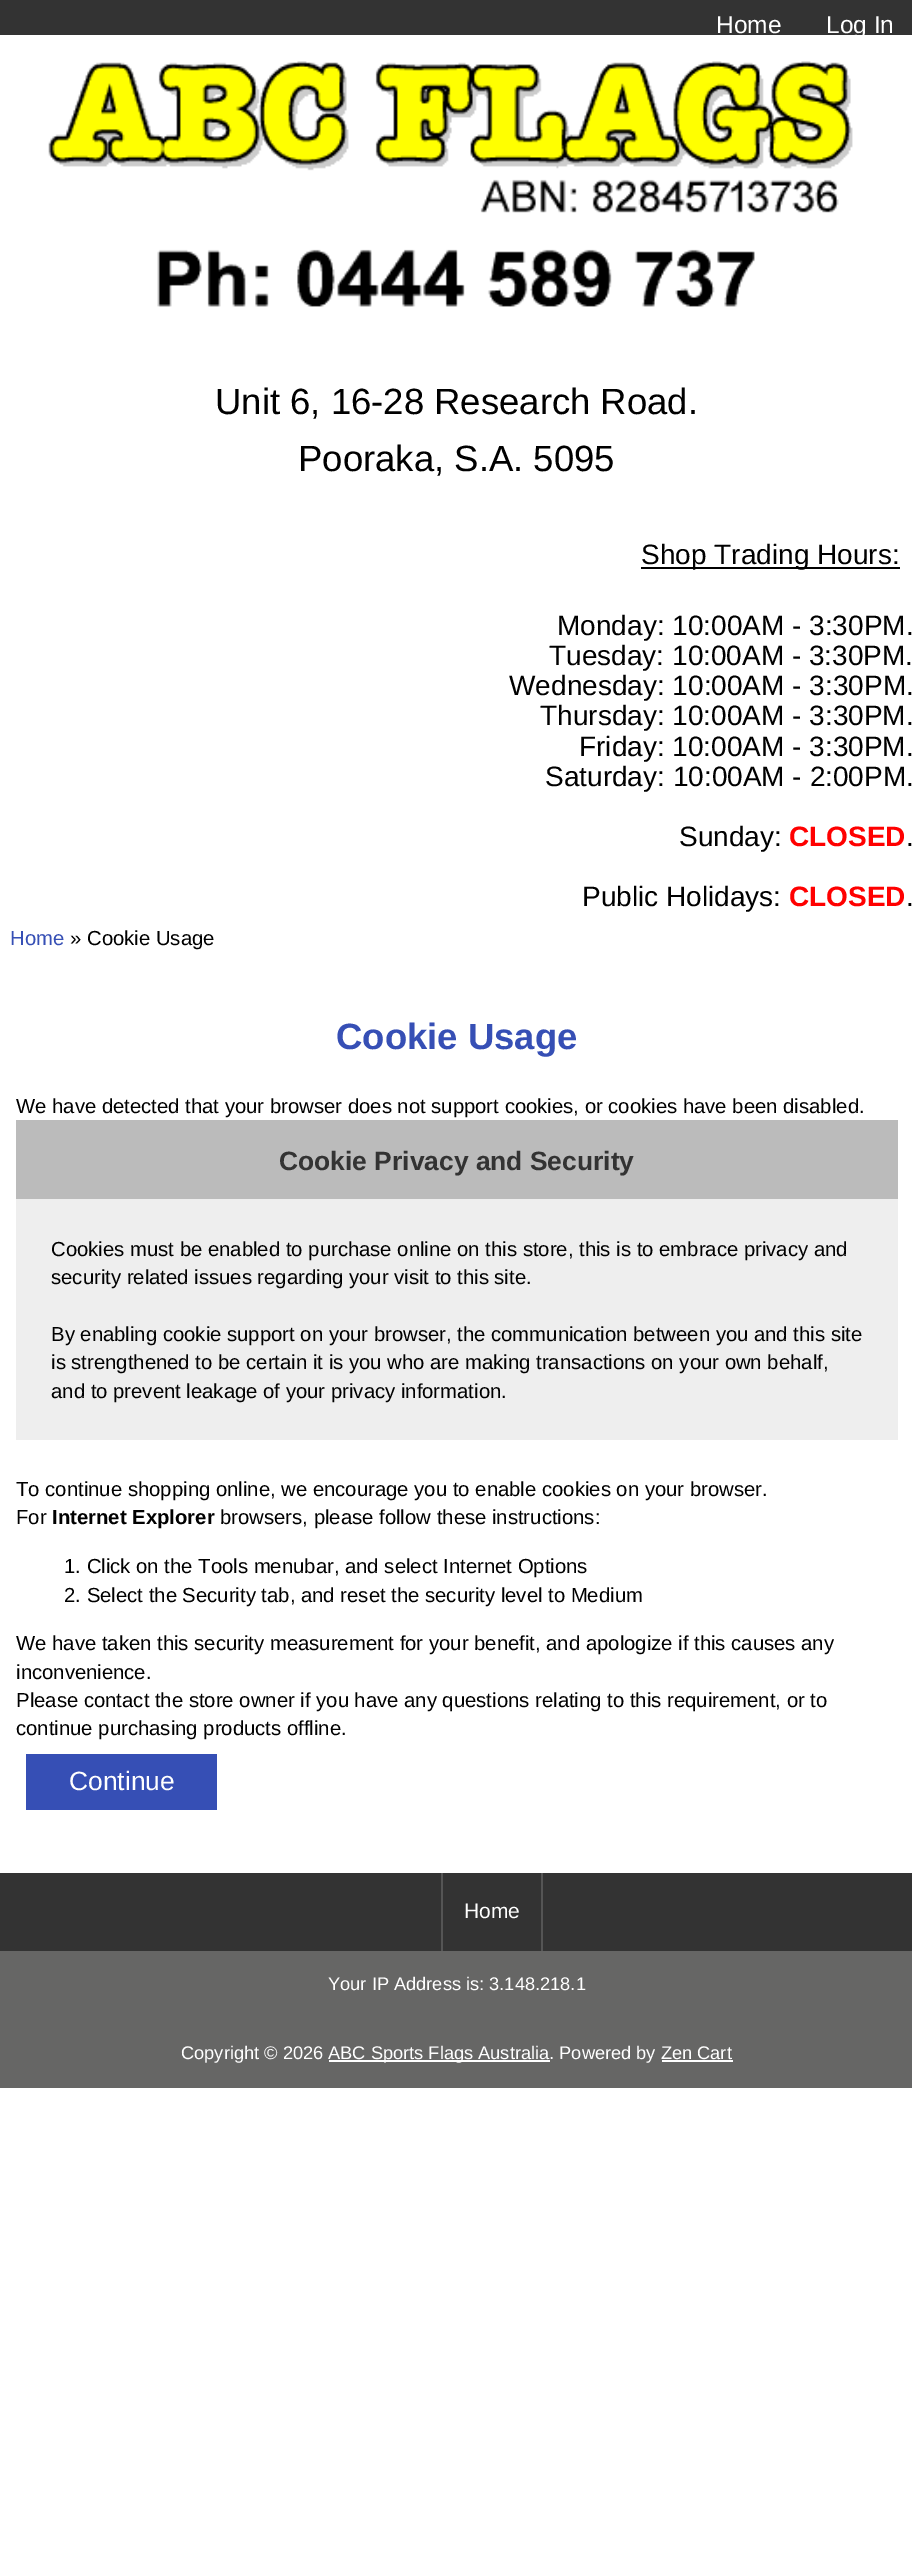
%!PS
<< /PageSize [912 2563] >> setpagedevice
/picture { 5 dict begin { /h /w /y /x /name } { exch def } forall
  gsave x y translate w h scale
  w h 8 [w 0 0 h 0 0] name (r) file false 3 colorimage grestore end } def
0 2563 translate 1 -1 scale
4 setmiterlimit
1 setgray
0 0 912 2563 rectfill
0.2 setgray
0 0 912 35 rectfill
/LiberationSans-Regular [24.5 0 0 -24.5 0 0] selectfont
1 setgray
716 33 moveto (Home) show
826 33 moveto (Log In) show
(img1.rgb) 48 61 805 246 picture
/LiberationSans-Regular [36.5 0 0 -36.5 0 0] selectfont
0 setgray
215 414 moveto (Unit 6, 16-28 Research Road.) show
298 471 moveto (Pooraka, S.A. 5095) show
641 567 259 2 rectfill
/LiberationSans-Regular [28 0 0 -28 0 0] selectfont
641 564 moveto (Shop Trading Hours:) show
557 635 moveto (Monday: 10:00AM - 3:30PM.) show
549 665 moveto (Tuesday: 10:00AM - 3:30PM.) show
509 695 moveto (Wednesday: 10:00AM - 3:30PM.) show
540 725 moveto (Thursday: 10:00AM - 3:30PM.) show
579 756 moveto (Friday: 10:00AM - 3:30PM.) show
545 786 moveto (Saturday: 10:00AM - 2:00PM.) show
679 846 moveto (Sunday:) show
/LiberationSans-Bold [28 0 0 -28 0 0] selectfont
1 0 0 setrgbcolor
789 846 moveto (CLOSED) show
/LiberationSans-Regular [28 0 0 -28 0 0] selectfont
0 setgray
906 846 moveto (.) show
582 906 moveto (Public Holidays:) show
/LiberationSans-Bold [28 0 0 -28 0 0] selectfont
1 0 0 setrgbcolor
789 906 moveto (CLOSED) show
/LiberationSans-Regular [28 0 0 -28 0 0] selectfont
0 setgray
906 906 moveto (.) show
/LiberationSans-Regular [20.3 0 0 -20.3 0 0] selectfont
0.212 0.31 0.71 setrgbcolor
10 945 moveto (Home) show
0 setgray
70 945 moveto (» Cookie Usage) show
/LiberationSans-Bold [36.5 0 0 -36.5 0 0] selectfont
0.212 0.31 0.71 setrgbcolor
336 1049 moveto (Cookie Usage) show
/LiberationSans-Regular [20.3 0 0 -20.3 0 0] selectfont
0 setgray
16 1113 moveto (We have detected that your browser does not support cookies, or cookies have been disabled.) show
0.933 setgray
16 1199 882 241 rectfill
0.733 setgray
16 1120 882 79 rectfill
/LiberationSans-Bold [26.4 0 0 -26.4 0 0] selectfont
0.2 setgray
279 1170 moveto (Cookie Privacy and Security) show
/LiberationSans-Regular [20.3 0 0 -20.3 0 0] selectfont
0 setgray
51 1256 moveto (Cookies must be enabled to purchase online on this store, this is to embrace privacy and) show
51 1284 moveto (security related issues regarding your visit to this site.) show
51 1341 moveto (By enabling cookie support on your browser, the communication between you and this site) show
51 1369 moveto (is strengthened to be certain it is you who are making transactions on your own behalf,) show
51 1398 moveto (and to prevent leakage of your privacy information.) show
16 1496 moveto (To continue shopping online, we encourage you to enable cookies on your browser.) show
16 1524 moveto (For) show
/LiberationSans-Bold [20.3 0 0 -20.3 0 0] selectfont
52 1524 moveto (Internet Explorer) show
/LiberationSans-Regular [20.3 0 0 -20.3 0 0] selectfont
220 1524 moveto (browsers, please follow these instructions:) show
64 1573 moveto (1. Click on the Tools menubar, and select Internet Options) show
64 1602 moveto (2. Select the Security tab, and reset the security level to Medium) show
16 1650 moveto (We have taken this security measurement for your benefit, and apologize if this causes any) show
16 1679 moveto (inconvenience.) show
16 1707 moveto (Please contact the store owner if you have any questions relating to this requirement, or to) show
16 1735 moveto (continue purchasing products offline.) show
0.212 0.31 0.71 setrgbcolor
26 1754 191 56 rectfill
/LiberationSans-Regular [26.4 0 0 -26.4 0 0] selectfont
1 setgray
69 1790 moveto (Continue) show
0.2 setgray
0 1873 912 78 rectfill
0.333 setgray
541 1873 2 78 rectfill
441 1873 2 78 rectfill
/LiberationSans-Regular [21 0 0 -21 0 0] selectfont
1 setgray
464 1918 moveto (Home) show
0.4 0.4 0.396 setrgbcolor
0 1951 912 137 rectfill
/LiberationSans-Regular [18.25 0 0 -18.25 0 0] selectfont
1 setgray
328 1990 moveto (Your IP Address is: 3.148.218.1) show
181 2059 moveto (Copyright © 2026) show
329 2060 221 2 rectfill
328 2059 moveto (ABC Sports Flags Australia. Powered by Zen Cart) show
662 2060 71 2 rectfill
showpage
